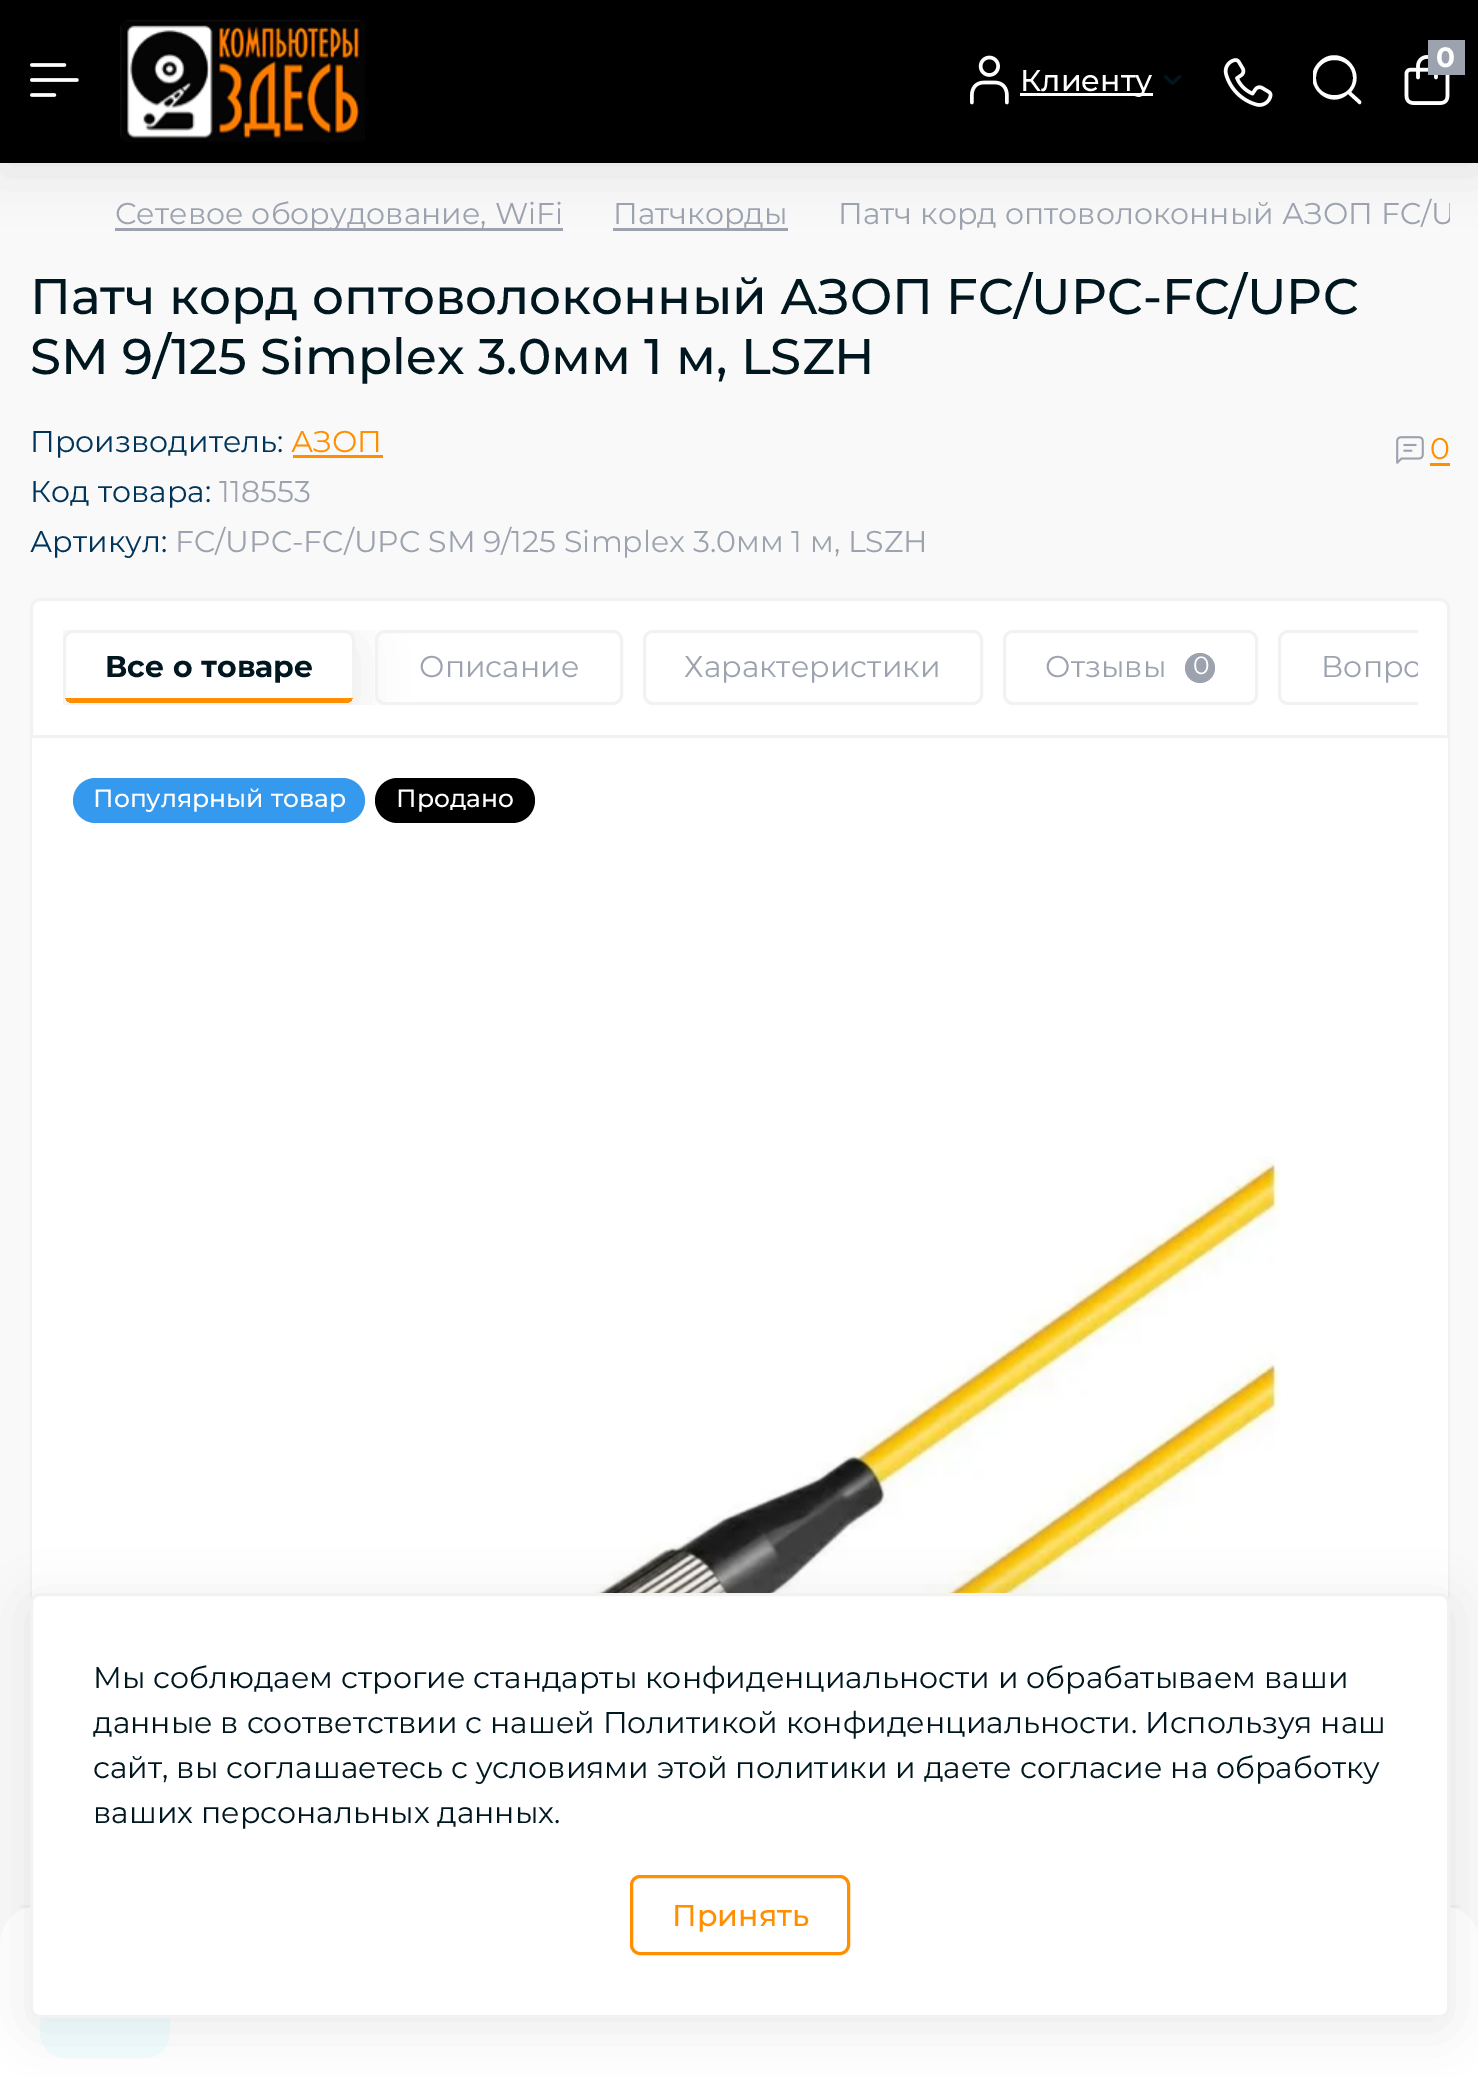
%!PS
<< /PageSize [1478 2077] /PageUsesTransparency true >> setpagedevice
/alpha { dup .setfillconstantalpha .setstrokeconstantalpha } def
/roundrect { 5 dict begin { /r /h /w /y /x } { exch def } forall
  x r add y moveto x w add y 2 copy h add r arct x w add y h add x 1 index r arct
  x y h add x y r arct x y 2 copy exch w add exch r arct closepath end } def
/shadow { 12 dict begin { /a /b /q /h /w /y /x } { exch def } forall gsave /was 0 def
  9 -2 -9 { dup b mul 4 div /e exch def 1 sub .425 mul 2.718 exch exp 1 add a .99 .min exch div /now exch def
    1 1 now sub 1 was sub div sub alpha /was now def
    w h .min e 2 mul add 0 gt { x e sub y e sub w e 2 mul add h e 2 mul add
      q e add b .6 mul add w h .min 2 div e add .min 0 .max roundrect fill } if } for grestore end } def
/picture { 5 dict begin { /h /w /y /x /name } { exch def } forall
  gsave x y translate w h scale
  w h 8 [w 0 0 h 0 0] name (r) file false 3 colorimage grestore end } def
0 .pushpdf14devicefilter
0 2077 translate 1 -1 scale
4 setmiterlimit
0.976 setgray
0 0 1478 2077 rectfill
0.612 0.639 0.686 setrgbcolor
115 228 448 3 rectfill
613 228 175 3 rectfill
0.145 0.149 0.153 setrgbcolor
0 10 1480 163 0 25 0.1 shadow
0 setgray
0 0 1478 163 rectfill
(img1.rgb) 30 63 49 34 picture
(img2.rgb) 120 20 245 122 picture
(img3.rgb) 970 55 39 50 picture
1 setgray
1020 93 133 3 rectfill
/Montserrat-Medium [30 0 0 -30 0 0] selectfont
1020 91 moveto (Клиенту) show
(img4.rgb) 1163 75 19 10 picture
(img5.rgb) 1223 58 50 49 picture
gsave
1313 55 50 50 rectclip
newpath 1361 101 moveto 1351 92 lineto 1369 71 1339 42 1319 62 curveto 1299 82 1328 112 1348 94 curveto 1359 104 lineto 1360 105 1362 103 1361 101 curveto closepath 1316 78 moveto 1316 54 1353 54 1353 78 curveto 1353 101 1316 101 1316 78 curveto closepath fill
grestore
(img6.rgb) 1404 55 46 50 picture
0.612 0.639 0.686 setrgbcolor
1428 40 37 35 rectfill
/Montserrat-Bold [28 0 0 -28 0 0] selectfont
1 setgray
1436 67 moveto (0) show
/Montserrat-Regular [30 0 0 -30 0 0] selectfont
0.612 0.639 0.686 setrgbcolor
115 224 moveto (Сетевое оборудование, WiFi) show
613 224 moveto (Патчкорды) show
gsave
30 163 1420 105 rectclip
838 224 moveto (Патч корд оптоволоконный АЗОП FC/U) show
grestore
/Montserrat-Medium [50 0 0 -50 0 0] selectfont
0 0.09 0.122 setrgbcolor
30 314 moveto (Патч корд оптоволоконный АЗОП FC/UPC-FC/UPC) show
30 374 moveto (SM 9/125 Simplex 3.0мм 1 м, LSZH) show
/Montserrat-Regular [30 0 0 -30 0 0] selectfont
0 0.204 0.349 setrgbcolor
30 452 moveto (Производитель:) show
1 0.557 0 setrgbcolor
291 452 moveto (АЗОП) show
293 455 90 3 rectfill
0 0.204 0.349 setrgbcolor
30 502 moveto (Код товара:) show
0.612 0.639 0.686 setrgbcolor
219 502 moveto (118553) show
0 0.204 0.349 setrgbcolor
30 552 moveto (Артикул:) show
0.612 0.639 0.686 setrgbcolor
175 552 moveto (FC/UPC-FC/UPC SM 9/125 Simplex 3.0мм 1 м, LSZH) show
(img7.rgb) 1396 436 28 28 picture
1 0.557 0 setrgbcolor
1430 459 moveto (0) show
1430 463 20 3 rectfill
1 setgray
newpath 40 599.5 moveto 1440 599.5 lineto 1444.5 599.5 1448.5 603.5 1448.5 608 curveto 1448.5 736.5 lineto 31.5 736.5 lineto 31.5 608 lineto 31.5 603.5 35.5 599.5 40 599.5 curveto closepath gsave fill grestore
0.949 setgray
3 setlinewidth
stroke
1 setgray
32 738 1416 859 rectfill
0.949 setgray
newpath 30 738 moveto 1450 738 lineto 1450 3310 lineto 1450 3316 1446 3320 1440 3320 curveto 40 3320 lineto 34 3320 30 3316 30 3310 curveto closepath 32 738 moveto 1448 738 lineto 1448 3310 lineto 1448 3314 1444 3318 1440 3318 curveto 40 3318 lineto 36 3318 32 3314 32 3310 curveto closepath eofill
0.208 0.604 0.933 setrgbcolor
73 778 292 45 22.5 roundrect fill
0 setgray
375 778 160 45 22.5 roundrect fill
gsave
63 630 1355 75 rectclip
0.145 0.149 0.153 setrgbcolor
63 640 292 75 10 25 0.1 shadow
grestore
1 setgray
64.5 631.5 289 72 8.5 roundrect gsave fill grestore
0.949 setgray
stroke
/Montserrat-Bold [30 0 0 -30 0 0] selectfont
0 0.09 0.122 setrgbcolor
105 677 moveto (Все о товаре) show
gsave
65 633 288 70 8 roundrect clip newpath
1 0.557 0 setrgbcolor
65 698 288 5 rectfill
grestore
0.949 setgray
376.5 631.5 245 72 8.5 roundrect stroke
/Montserrat-Regular [30 0 0 -30 0 0] selectfont
0.612 0.639 0.686 setrgbcolor
419 677 moveto (Описание) show
0.949 setgray
644.5 631.5 337 72 8.5 roundrect stroke
0.612 0.639 0.686 setrgbcolor
684 677 moveto (Характеристики) show
0.949 setgray
1004.5 631.5 252 72 8.5 roundrect stroke
0.612 0.639 0.686 setrgbcolor
1045 677 moveto (Отзывы) show
newpath 1200 668 15 0 360 arc closepath fill
/Montserrat-Regular [25 0 0 -25 0 0] selectfont
1 setgray
1193 674 moveto (0) show
gsave
63 630 1355 75 rectclip
0.949 setgray
1279.5 631.5 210 72 8.5 roundrect stroke
/Montserrat-Regular [30 0 0 -30 0 0] selectfont
0.612 0.639 0.686 setrgbcolor
1321 677 moveto (Вопро) show
grestore
/Montserrat-Medium [25 0 0 -25 0 0] selectfont
93 807 moveto (Популярный товар) show
396 807 moveto (Продано) show
(img8.rgb) 405 1156 876 437 picture
newpath 40 1905 moveto 1440 1905 lineto 1462 1905 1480 1923 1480 1945 curveto 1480 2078 lineto 0 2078 lineto 0 1945 lineto 0 1923 18 1905 40 1905 curveto closepath fill
0.949 setgray
20 1905 1440 3 rectfill
0.949 0.992 1 setrgbcolor
40 1928 130 130 25 roundrect fill
0.145 0.149 0.153 setrgbcolor
30 1603 1420 425 10 25 0.1 shadow
1 setgray
31.5 1594.5 1417 422 8.5 roundrect gsave fill grestore
0.949 setgray
stroke
/Montserrat-Regular [30 0 0 -30 0 0] selectfont
0 0.09 0.122 setrgbcolor
93 1688 moveto (Мы соблюдаем строгие стандарты конфиденциальности и обрабатываем ваши) show
93 1733 moveto (данные в соответствии с нашей Политикой конфиденциальности. Используя наш) show
93 1778 moveto (сайт, вы соглашаетесь с условиями этой политики и даете согласие на обработку) show
93 1823 moveto (ваших персональных данных.) show
1 0.557 0 setrgbcolor
631.5 1876.5 217 77 8.5 roundrect stroke
/Montserrat-Medium [30 0 0 -30 0 0] selectfont
672 1926 moveto (Принять) show
.poppdf14devicefilter showpage
